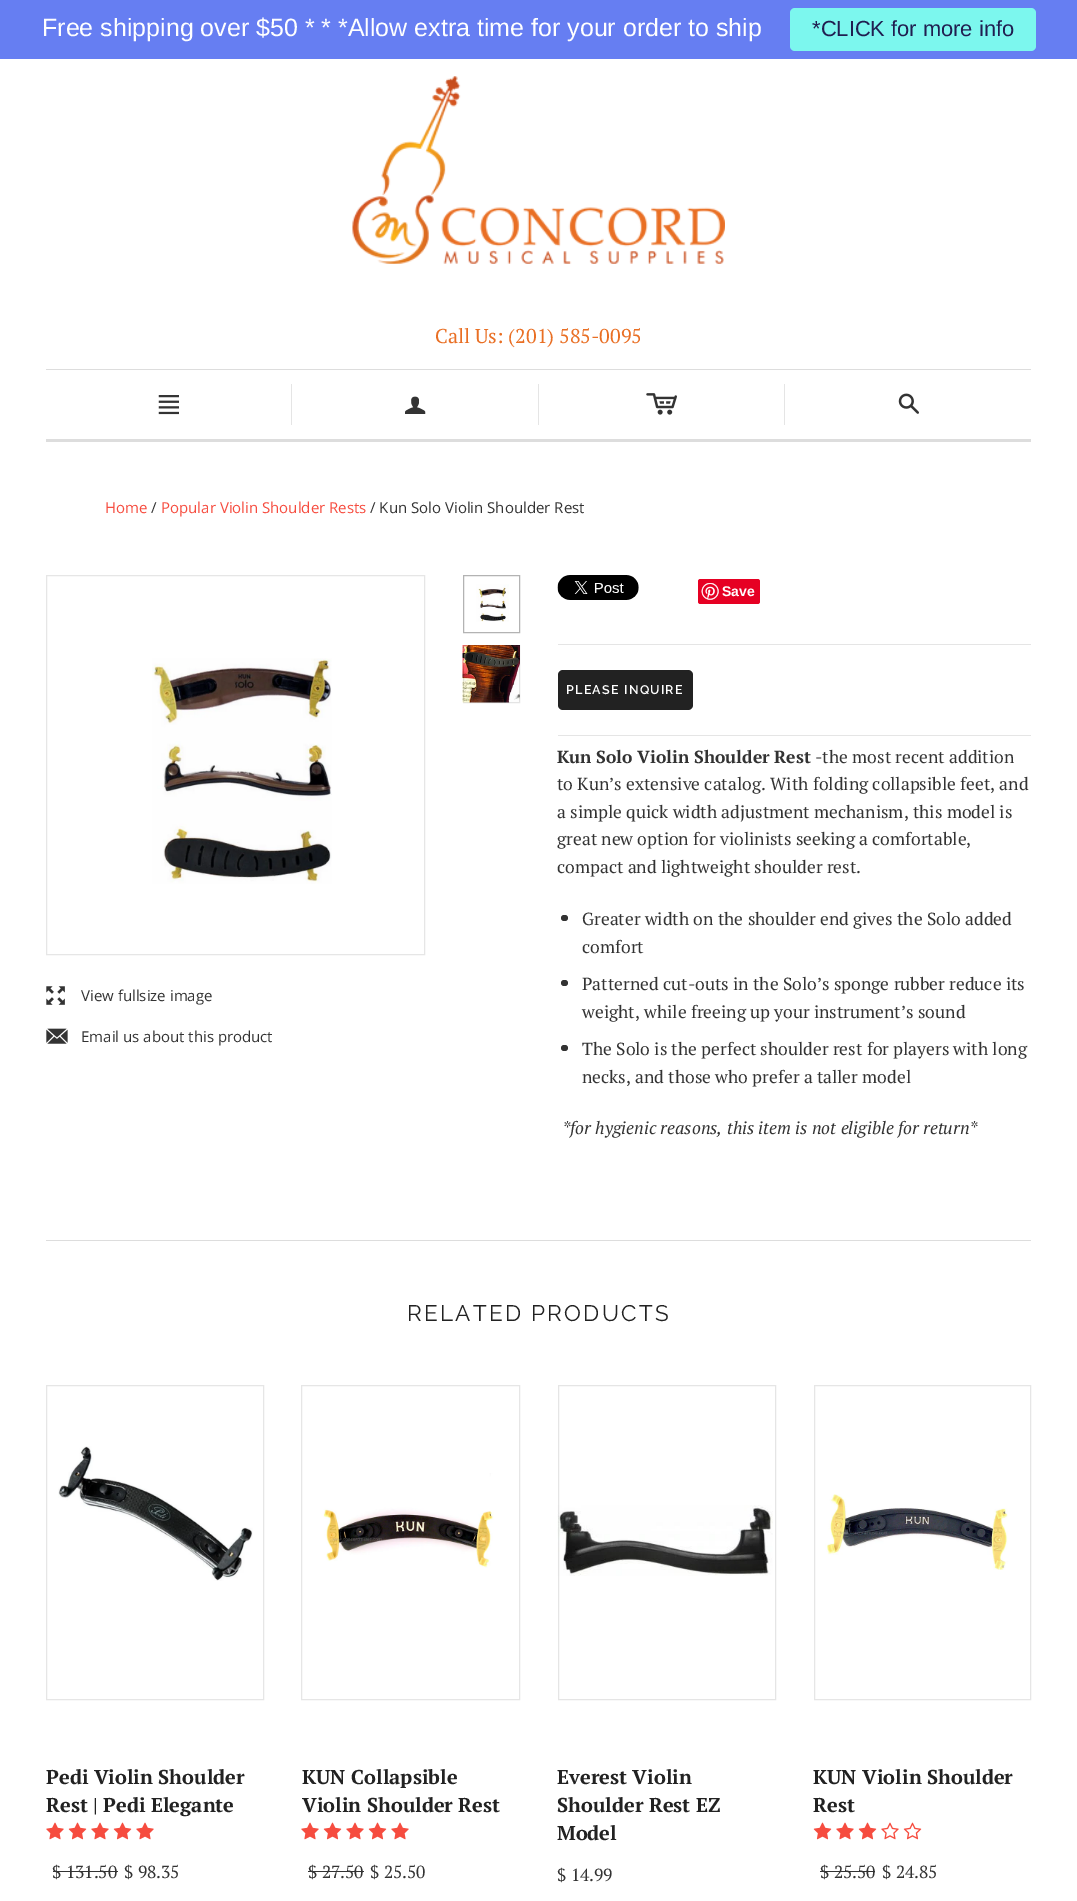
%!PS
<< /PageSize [1077 1901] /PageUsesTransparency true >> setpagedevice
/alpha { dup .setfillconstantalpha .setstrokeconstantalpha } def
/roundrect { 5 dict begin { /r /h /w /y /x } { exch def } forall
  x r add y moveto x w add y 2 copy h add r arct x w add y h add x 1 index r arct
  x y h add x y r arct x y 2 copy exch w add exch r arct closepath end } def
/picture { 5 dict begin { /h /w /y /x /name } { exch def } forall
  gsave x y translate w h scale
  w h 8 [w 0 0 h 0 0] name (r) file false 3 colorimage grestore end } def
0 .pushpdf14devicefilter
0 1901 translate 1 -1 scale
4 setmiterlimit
1 setgray
0 0 1077 1901 rectfill
0.4 0.494 0.949 setrgbcolor
0 0 1077 59 rectfill
/LiberationSans-Regular [25 0 0 -25 0 0] selectfont
1 setgray
42 36 moveto (Free shipping over $50 * * *Allow extra time for your order to ship) show
0.486 0.969 0.933 setrgbcolor
790 8 246 43 5 roundrect fill
/LiberationSans-Regular [21.9 0 0 -21.9 0 0] selectfont
0.125 0.118 0.314 setrgbcolor
812 36 moveto (*CLICK for more info) show
(img1.rgb) 352 76 373 188 picture
/PTSerif-Regular [20 0 0 -20 0 0] selectfont
0.914 0.435 0.141 setrgbcolor
435 343 moveto (Call Us: \(201\) 585-0095) show
0.867 setgray
46 369 985 1 rectfill
46 439 985 3 rectfill
(img2.rgb) 158 395 21 20 picture
0.898 setgray
291 384 1 41 rectfill
(img3.rgb) 405 396 21 18 picture
538 384 1 41 rectfill
(img4.rgb) 646 393 31 22 picture
784 384 1 41 rectfill
(img5.rgb) 898 393 21 21 picture
/OpenSans-Regular [15 0 0 -15 0 0] selectfont
0.965 0.298 0.247 setrgbcolor
105 513 moveto (Home) show
0.2 setgray
151 513 moveto (/) show
0.965 0.298 0.247 setrgbcolor
161 513 moveto (Popular Violin Shoulder Rests) show
0.2 setgray
370 513 moveto (/ Kun Solo Violin Shoulder Rest) show
(img6.rgb) 152 658 180 226 picture
0.902 setgray
46.5 575.5 378 379 rectstroke
(img7.rgb) 476 584 33 38 picture
0.702 setgray
463.5 575.5 56 57 rectstroke
(img8.rgb) 462 645 58 58 picture
0.1 alpha
0 setgray
463.5 645.5 56 57 rectstroke
1 alpha
(img9.rgb) 46 986 19 19 picture
0.2 setgray
81 1001 moveto (View fullsize image) show
(img10.rgb) 46 1028 22 16 picture
81 1042 moveto (Email us about this product) show
(img11.rgb) 557 575 82 25 picture
0.902 0 0.137 setrgbcolor
698 579 62 25 2.5 roundrect fill
(img12.rgb) 701 583 18 17 picture
/LiberationSans-Bold [14 0 0 -14 0 0] selectfont
1 setgray
722 596 moveto (Save) show
0.898 setgray
558 644 473 1 rectfill
0.133 setgray
558 670 135 40 5 roundrect fill
/Raleway-SemiBold [12.5 0 0 -12.5 0 0] selectfont
1 setgray
566 694 moveto 1.25 0 (PLEASE INQUIRE) ashow
0.898 setgray
558 735 473 1 rectfill
/PTSerif-Bold [17.5 0 0 -17.5 0 0] selectfont
0.2 setgray
557 763 moveto (Kun Solo Violin Shoulder Rest) show
/PTSerif-Regular [17.5 0 0 -17.5 0 0] selectfont
815 763 moveto (-the most recent addition) show
557 790 moveto (to Kun’s extensive catalog. With folding collapsible feet, and) show
557 818 moveto (a simple quick width adjustment mechanism, this model is) show
557 845 moveto (great new option for violinists seeking a comfortable,) show
557 873 moveto (compact and lightweight shoulder rest.) show
561 915 7 6 3 roundrect fill
582 925 moveto (Greater width on the shoulder end gives the Solo added) show
582 953 moveto (comfort) show
561 980 7 6 3 roundrect fill
582 990 moveto (Patterned cut-outs in the Solo’s sponge rubber reduce its) show
582 1018 moveto (weight, while freeing up your instrument’s sound) show
561 1045 7 6 3 roundrect fill
582 1055 moveto (The Solo is the perfect shoulder rest for players with long) show
582 1083 moveto (necks, and those who prefer a taller model) show
/PTSerif-Italic [17.5 0 0 -17.5 0 0] selectfont
562 1134 moveto (*for hygienic reasons, this item is not eligible for return*) show
0.867 setgray
46 1240 985 1 rectfill
/Raleway-Regular [22.5 0 0 -22.5 0 0] selectfont
0.133 setgray
407 1321 moveto 2.25 0 (RELATED PRODUCTS) ashow
(img13.rgb) 58 1446 195 135 picture
0.902 setgray
46.5 1385.5 217 314 rectstroke
/PTSerif-Bold [20 0 0 -20 0 0] selectfont
0.133 setgray
46 1784 moveto (Pedi Violin Shoulder) show
46 1812 moveto (Rest | Pedi Elegante) show
(img14.rgb) 46 1822 18 18 picture
(img15.rgb) 68 1822 19 18 picture
(img14.rgb) 91 1822 18 18 picture
(img15.rgb) 113 1822 19 18 picture
(img14.rgb) 136 1822 18 18 picture
/PTSerif-Regular [17.5 0 0 -17.5 0 0] selectfont
0.2 setgray
52 1878 moveto ($ 131.50) show
53 1871 65 1 rectfill
124 1878 moveto ($ 98.35) show
(img16.rgb) 323 1473 171 95 picture
0.902 setgray
301.5 1385.5 218 314 rectstroke
/PTSerif-Bold [20 0 0 -20 0 0] selectfont
0.133 setgray
302 1784 moveto (KUN Collapsible) show
302 1812 moveto (Violin Shoulder Rest) show
(img14.rgb) 301 1822 18 18 picture
(img15.rgb) 323 1822 19 18 picture
(img14.rgb) 346 1822 18 18 picture
(img15.rgb) 368 1822 19 18 picture
(img14.rgb) 391 1822 18 18 picture
/PTSerif-Regular [17.5 0 0 -17.5 0 0] selectfont
0.2 setgray
308 1878 moveto ($ 27.50) show
308 1871 56 1 rectfill
370 1878 moveto ($ 25.50) show
(img17.rgb) 557 1505 216 71 picture
0.1 alpha
0 setgray
558.5 1385.5 217 314 rectstroke
/PTSerif-Bold [20 0 0 -20 0 0] selectfont
1 alpha
0.133 setgray
557 1784 moveto (Everest Violin) show
557 1812 moveto (Shoulder Rest EZ) show
557 1840 moveto (Model) show
/PTSerif-Regular [17.5 0 0 -17.5 0 0] selectfont
0.2 setgray
557 1881 moveto ($ 14.99) show
(img18.rgb) 825 1494 183 76 picture
0.902 setgray
814.5 1385.5 216 314 rectstroke
/PTSerif-Bold [20 0 0 -20 0 0] selectfont
0.133 setgray
813 1784 moveto (KUN Violin Shoulder) show
813 1812 moveto (Rest) show
(img15.rgb) 813 1822 19 18 picture
(img14.rgb) 836 1822 18 18 picture
(img15.rgb) 858 1822 19 18 picture
(img19.rgb) 881 1822 18 18 picture
(img20.rgb) 903 1822 19 18 picture
/PTSerif-Regular [17.5 0 0 -17.5 0 0] selectfont
0.2 setgray
820 1878 moveto ($ 25.50) show
820 1871 55 1 rectfill
882 1878 moveto ($ 24.85) show
.poppdf14devicefilter showpage
